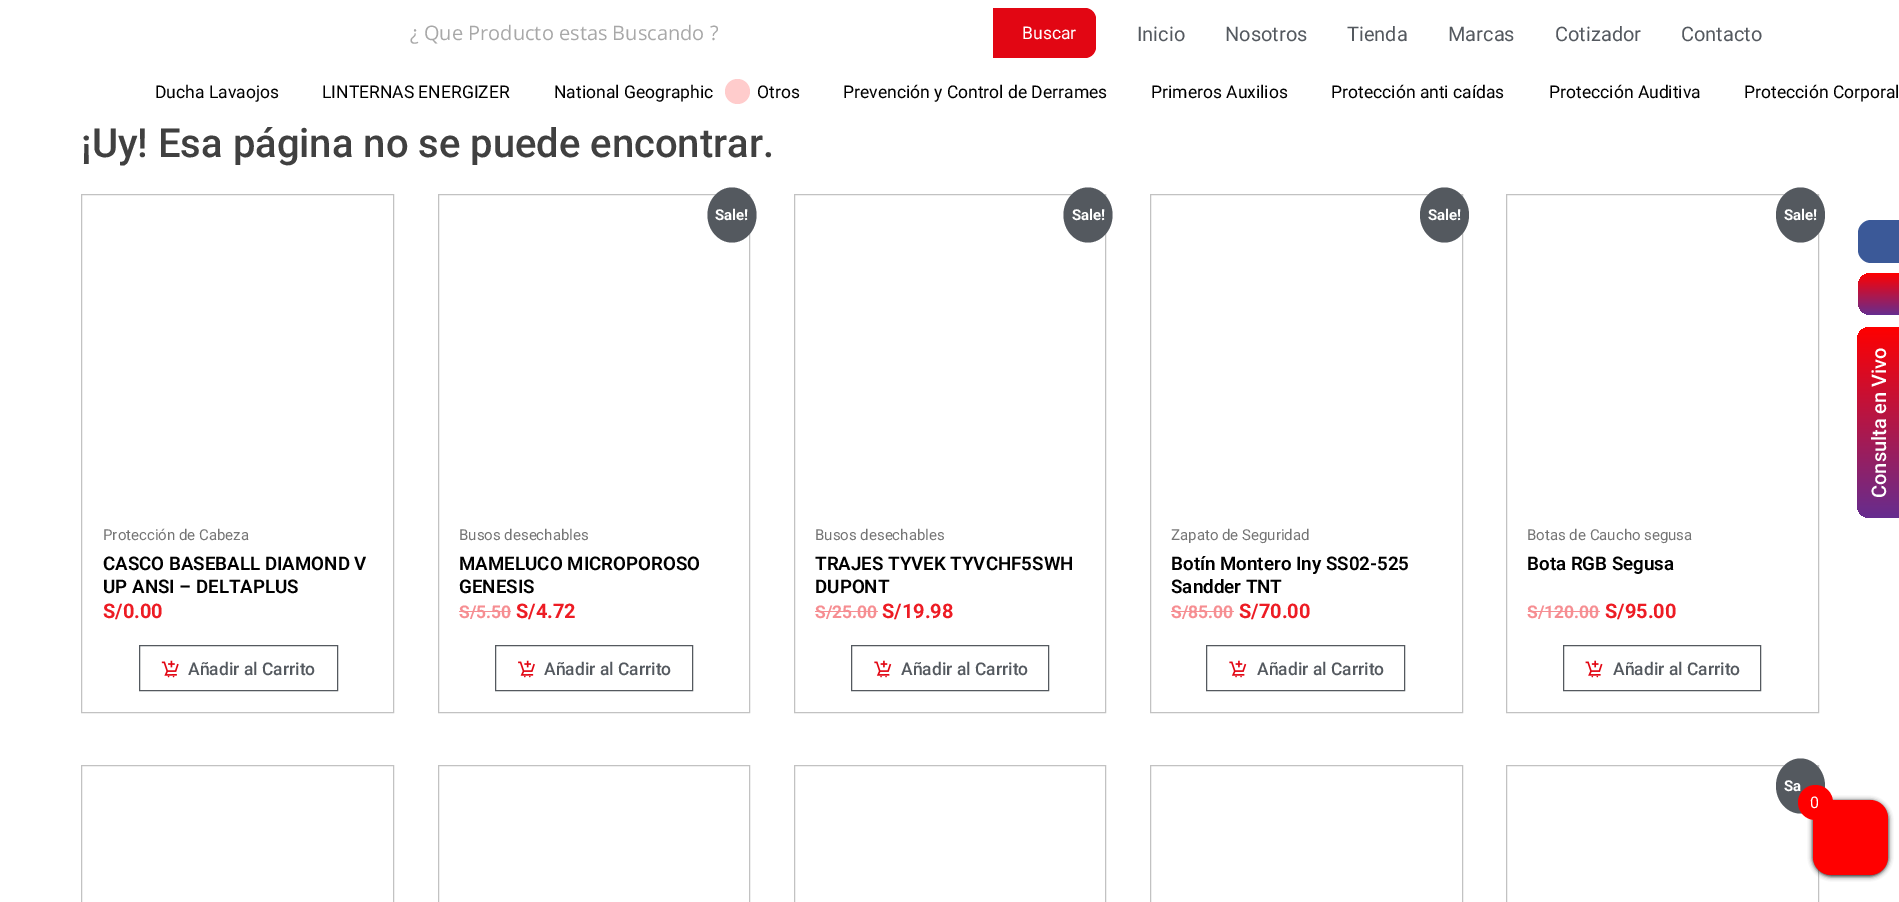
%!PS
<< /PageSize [1899 902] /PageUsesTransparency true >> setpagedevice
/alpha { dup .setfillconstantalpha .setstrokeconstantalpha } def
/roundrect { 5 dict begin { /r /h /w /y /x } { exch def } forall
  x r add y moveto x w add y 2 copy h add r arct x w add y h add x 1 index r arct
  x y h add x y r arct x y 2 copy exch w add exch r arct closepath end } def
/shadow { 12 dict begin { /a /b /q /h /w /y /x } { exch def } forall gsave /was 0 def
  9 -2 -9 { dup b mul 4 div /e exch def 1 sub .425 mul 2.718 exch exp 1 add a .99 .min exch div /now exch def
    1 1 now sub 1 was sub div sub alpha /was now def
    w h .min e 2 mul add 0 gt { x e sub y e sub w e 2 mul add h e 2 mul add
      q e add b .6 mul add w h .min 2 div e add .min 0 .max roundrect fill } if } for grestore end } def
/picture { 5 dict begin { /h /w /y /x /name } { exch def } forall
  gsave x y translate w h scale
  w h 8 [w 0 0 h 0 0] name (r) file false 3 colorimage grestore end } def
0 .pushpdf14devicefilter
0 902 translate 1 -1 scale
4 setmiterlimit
1 setgray
0 0 1899 902 rectfill
/OpenSans-Regular [20 0 0 -20 0 0] selectfont
0.659 setgray
410 40 moveto (¿ Que Producto estas Buscando ?) show
0.886 0.024 0.075 setrgbcolor
newpath 993 8 moveto 1085 8 lineto 1091 8 1096 13 1096 19 curveto 1096 47 lineto 1096 53 1091 58 1085 58 curveto 993 58 lineto closepath fill
/Roboto-Regular [17.5 0 0 -17.5 0 0] selectfont
1 setgray
1022 39 moveto (Buscar) show
/Roboto-Regular [20 0 0 -20 0 0] selectfont
0.329 0.349 0.373 setrgbcolor
1137 41 moveto (Inicio) show
1225 41 moveto (Nosotros) show
1347 41 moveto (Tienda) show
1448 41 moveto (Marcas) show
1555 41 moveto (Cotizador) show
1681 41 moveto (Contacto) show
/Roboto-Regular [17.5 0 0 -17.5 0 0] selectfont
0 setgray
155 98 moveto (Ducha Lavaojos) show
322 98 moveto (LINTERNAS ENERGIZER) show
554 98 moveto (National Geographic) show
1 0.8 0.8 setrgbcolor
newpath 737.5 91.5 12.5 0 360 arc closepath fill
0 setgray
757 98 moveto (Otros) show
843 98 moveto (Prevención y Control de Derrames) show
1151 98 moveto (Primeros Auxilios) show
1331 98 moveto (Protección anti caídas) show
1549 98 moveto (Protección Auditiva) show
1744 98 moveto (Protección Corporal) show
/Roboto-Medium [40 0 0 -40 0 0] selectfont
0.251 setgray
81 157 moveto (¡Uy! Esa página no se puede encontrar.) show
0.761 setgray
81.5 194.5 312 518 rectstroke
/Roboto-Regular [15 0 0 -15 0 0] selectfont
0.459 setgray
103 540 moveto (Protección de Cabeza) show
/Roboto-SemiBold [18.75 0 0 -18.75 0 0] selectfont
0 setgray
103 570 moveto (CASCO BASEBALL DIAMOND V) show
103 593 moveto (UP ANSI – DELTAPLUS) show
/Roboto-Bold [20 0 0 -20 0 0] selectfont
0.929 0.11 0.141 setrgbcolor
103 618 moveto (S/0.00) show
0.329 0.349 0.373 setrgbcolor
139.5 645.5 198 45 rectstroke
(img1.rgb) 161 660 18 18 picture
/Roboto-Medium [17.5 0 0 -17.5 0 0] selectfont
188 675 moveto (Añadir al Carrito) show
0.761 setgray
438.5 194.5 311 518 rectstroke
0.329 0.349 0.373 setrgbcolor
newpath 732 187.5 moveto 745.5 187.5 756.5 200 756.5 215 curveto 756.5 230 745.5 242.5 732 242.5 curveto 718.5 242.5 707.5 230 707.5 215 curveto 707.5 200 718.5 187.5 732 187.5 curveto closepath fill
/Roboto-Bold [15 0 0 -15 0 0] selectfont
1 setgray
715 220 moveto (Sale!) show
/Roboto-Regular [15 0 0 -15 0 0] selectfont
0.459 setgray
459 540 moveto (Busos desechables) show
/Roboto-SemiBold [18.75 0 0 -18.75 0 0] selectfont
0 setgray
459 570 moveto (MAMELUCO MICROPOROSO) show
459 593 moveto (GENESIS) show
/Roboto-Bold [17.5 0 0 -17.5 0 0] selectfont
0.965 0.557 0.573 setrgbcolor
459 618 moveto (S/5.50) show
459 611 52 1 rectfill
/Roboto-Bold [20 0 0 -20 0 0] selectfont
0.929 0.11 0.141 setrgbcolor
516 618 moveto (S/4.72) show
0.329 0.349 0.373 setrgbcolor
495.5 645.5 197 45 rectstroke
(img2.rgb) 518 660 17 18 picture
/Roboto-Medium [17.5 0 0 -17.5 0 0] selectfont
544 675 moveto (Añadir al Carrito) show
0.761 setgray
794.5 194.5 311 518 rectstroke
0.329 0.349 0.373 setrgbcolor
newpath 1088 187.5 moveto 1101.5 187.5 1112.5 200 1112.5 215 curveto 1112.5 230 1101.5 242.5 1088 242.5 curveto 1074.5 242.5 1063.5 230 1063.5 215 curveto 1063.5 200 1074.5 187.5 1088 187.5 curveto closepath fill
/Roboto-Bold [15 0 0 -15 0 0] selectfont
1 setgray
1072 220 moveto (Sale!) show
/Roboto-Regular [15 0 0 -15 0 0] selectfont
0.459 setgray
815 540 moveto (Busos desechables) show
/Roboto-SemiBold [18.75 0 0 -18.75 0 0] selectfont
0 setgray
815 570 moveto (TRAJES TYVEK TYVCHF5SWH) show
815 593 moveto (DUPONT) show
/Roboto-Bold [17.5 0 0 -17.5 0 0] selectfont
0.965 0.557 0.573 setrgbcolor
815 618 moveto (S/) show
815 611 18 1 rectfill
832 618 moveto (25.00) show
833 611 45 1 rectfill
/Roboto-Bold [20 0 0 -20 0 0] selectfont
0.929 0.11 0.141 setrgbcolor
882 618 moveto (S/19.98) show
0.329 0.349 0.373 setrgbcolor
851.5 645.5 197 45 rectstroke
(img3.rgb) 874 660 18 18 picture
/Roboto-Medium [17.5 0 0 -17.5 0 0] selectfont
901 675 moveto (Añadir al Carrito) show
0.761 setgray
1150.5 194.5 312 518 rectstroke
0.329 0.349 0.373 setrgbcolor
newpath 1444.5 187.5 moveto 1458 187.5 1469 200 1469 215 curveto 1469 230 1458 242.5 1444.5 242.5 curveto 1431 242.5 1420 230 1420 215 curveto 1420 200 1431 187.5 1444.5 187.5 curveto closepath fill
/Roboto-Bold [15 0 0 -15 0 0] selectfont
1 setgray
1428 220 moveto (Sale!) show
/Roboto-Regular [15 0 0 -15 0 0] selectfont
0.459 setgray
1171 540 moveto (Zapato de Seguridad) show
/Roboto-SemiBold [18.75 0 0 -18.75 0 0] selectfont
0 setgray
1171 570 moveto (Botín Montero Iny SS02-525) show
1171 593 moveto (Sandder TNT) show
/Roboto-Bold [17.5 0 0 -17.5 0 0] selectfont
0.965 0.557 0.573 setrgbcolor
1171 618 moveto (S/85.00) show
1171 611 63 1 rectfill
/Roboto-Bold [20 0 0 -20 0 0] selectfont
0.929 0.11 0.141 setrgbcolor
1239 618 moveto (S/70.00) show
0.329 0.349 0.373 setrgbcolor
1206.5 645.5 198 45 rectstroke
(img3.rgb) 1229 660 18 18 picture
/Roboto-Medium [17.5 0 0 -17.5 0 0] selectfont
1257 675 moveto (Añadir al Carrito) show
0.761 setgray
1506.5 194.5 312 518 rectstroke
0.329 0.349 0.373 setrgbcolor
newpath 1800.5 187.5 moveto 1814 187.5 1825 200 1825 215 curveto 1825 230 1814 242.5 1800.5 242.5 curveto 1787 242.5 1776 230 1776 215 curveto 1776 200 1787 187.5 1800.5 187.5 curveto closepath fill
/Roboto-Bold [15 0 0 -15 0 0] selectfont
1 setgray
1784 220 moveto (Sale!) show
/Roboto-Regular [15 0 0 -15 0 0] selectfont
0.459 setgray
1527 540 moveto (Botas de Caucho segusa) show
/Roboto-SemiBold [18.75 0 0 -18.75 0 0] selectfont
0 setgray
1527 570 moveto (Bota RGB Segusa) show
/Roboto-Bold [17.5 0 0 -17.5 0 0] selectfont
0.965 0.557 0.573 setrgbcolor
1527 618 moveto (S/120.00) show
1528 611 72 1 rectfill
/Roboto-Bold [20 0 0 -20 0 0] selectfont
0.929 0.11 0.141 setrgbcolor
1605 618 moveto (S/95.00) show
0.329 0.349 0.373 setrgbcolor
1563.5 645.5 197 45 rectstroke
(img4.rgb) 1585 660 18 18 picture
/Roboto-Medium [17.5 0 0 -17.5 0 0] selectfont
1613 675 moveto (Añadir al Carrito) show
0.761 setgray
81.5 765.5 312 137 rectstroke
438.5 765.5 311 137 rectstroke
794.5 765.5 311 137 rectstroke
1150.5 765.5 312 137 rectstroke
1506.5 765.5 312 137 rectstroke
0.329 0.349 0.373 setrgbcolor
newpath 1800.5 758.5 moveto 1814 758.5 1825 771 1825 786 curveto 1825 801 1814 813.5 1800.5 813.5 curveto 1787 813.5 1776 801 1776 786 curveto 1776 771 1787 758.5 1800.5 758.5 curveto closepath fill
/Roboto-Bold [15 0 0 -15 0 0] selectfont
1 setgray
1784 791 moveto (Sa) show
0.231 0.349 0.596 setrgbcolor
newpath 1871 220 moveto 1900 220 lineto 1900 263 lineto 1871 263 lineto 1864 263 1858 257 1858 250 curveto 1858 233 lineto 1858 226 1864 220 1871 220 curveto closepath fill
gsave newpath 1871 273 moveto 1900 273 lineto 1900 315 lineto 1871 315 lineto 1864 315 1858 309 1858 302 curveto 1858 286 lineto 1858 279 1864 273 1871 273 curveto closepath clip newpath
<< /ShadingType 2 /ColorSpace /DeviceRGB /Coords [1879 273 1879 315] /Extend [true true] /Function << /FunctionType 2 /Domain [0 1] /C0 [1 0 0] /C1 [0.4 0.176 0.561] /N 1 >> >> shfill grestore
gsave newpath 1857 505 moveto 1857 340 lineto 1857 333 1863 327 1870 327 curveto 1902 327 lineto 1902 518 lineto 1870 518 lineto 1863 518 1857 512 1857 505 curveto closepath clip newpath
<< /ShadingType 2 /ColorSpace /DeviceRGB /Coords [1880 518 1880 327] /Extend [true true] /Function << /FunctionType 2 /Domain [0 1] /C0 [0.4 0.176 0.561] /C1 [1 0 0] /N 1 >> >> shfill grestore
/Roboto-Medium [20 0 0 -20 0 0] selectfont
1 setgray
gsave 1886 498 translate -90 rotate 0 0 moveto (Consulta en Vivo) show grestore
0 setgray
1813 801 75 75 18 2.5 1 shadow
1 0 0 setrgbcolor
1813 800 75 75 18 roundrect fill
newpath 1815.5 802.5 17.5 0 360 arc closepath fill
/Roboto-Regular [16 0 0 -16 0 0] selectfont
1 setgray
1810 808 moveto (0) show
.poppdf14devicefilter showpage
